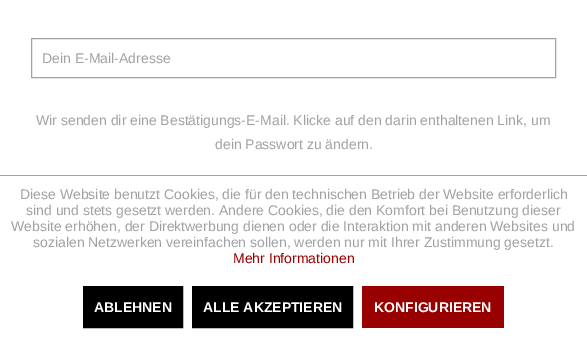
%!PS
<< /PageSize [587 338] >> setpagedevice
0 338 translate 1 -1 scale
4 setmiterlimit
1 setgray
0 0 587 338 rectfill
0.631 0.635 0.647 setrgbcolor
31.5 38.5 524 39 rectstroke
/LiberationSans-Regular [14 0 0 -14 0 0] selectfont
42 63 moveto (Dein E-Mail-Adresse) show
36 125 moveto (Wir senden dir eine Bestätigungs-E-Mail. Klicke auf den darin enthaltenen Link, um) show
215 149 moveto (dein Passwort zu ändern.) show
0 175 587 1 rectfill
20 199 moveto (Diese Website benutzt Cookies, die für den technischen Betrieb der Website erforderlich) show
26 215 moveto (sind und stets gesetzt werden. Andere Cookies, die den Komfort bei Benutzung dieser) show
11 231 moveto (Website erhöhen, der Direktwerbung dienen oder die Interaktion mit anderen Websites und) show
33 247 moveto (sozialen Netzwerken vereinfachen sollen, werden nur mit Ihrer Zustimmung gesetzt.) show
0.6 0 0 setrgbcolor
233 263 moveto (Mehr Informationen) show
0 setgray
newpath 83.5 286.5 moveto 182.5 286.5 lineto 182.5 327.5 lineto 83.5 327.5 lineto closepath gsave fill grestore
stroke
/LiberationSans-Bold [14 0 0 -14 0 0] selectfont
1 setgray
94 312 moveto (ABLEHNEN) show
0 setgray
newpath 192.5 286.5 moveto 352.5 286.5 lineto 352.5 327.5 lineto 192.5 327.5 lineto closepath gsave fill grestore
stroke
1 setgray
203 312 moveto (ALLE AKZEPTIEREN) show
0.6 0 0 setrgbcolor
362 286 142 42 rectfill
1 setgray
374 312 moveto (KONFIGURIEREN) show
showpage
